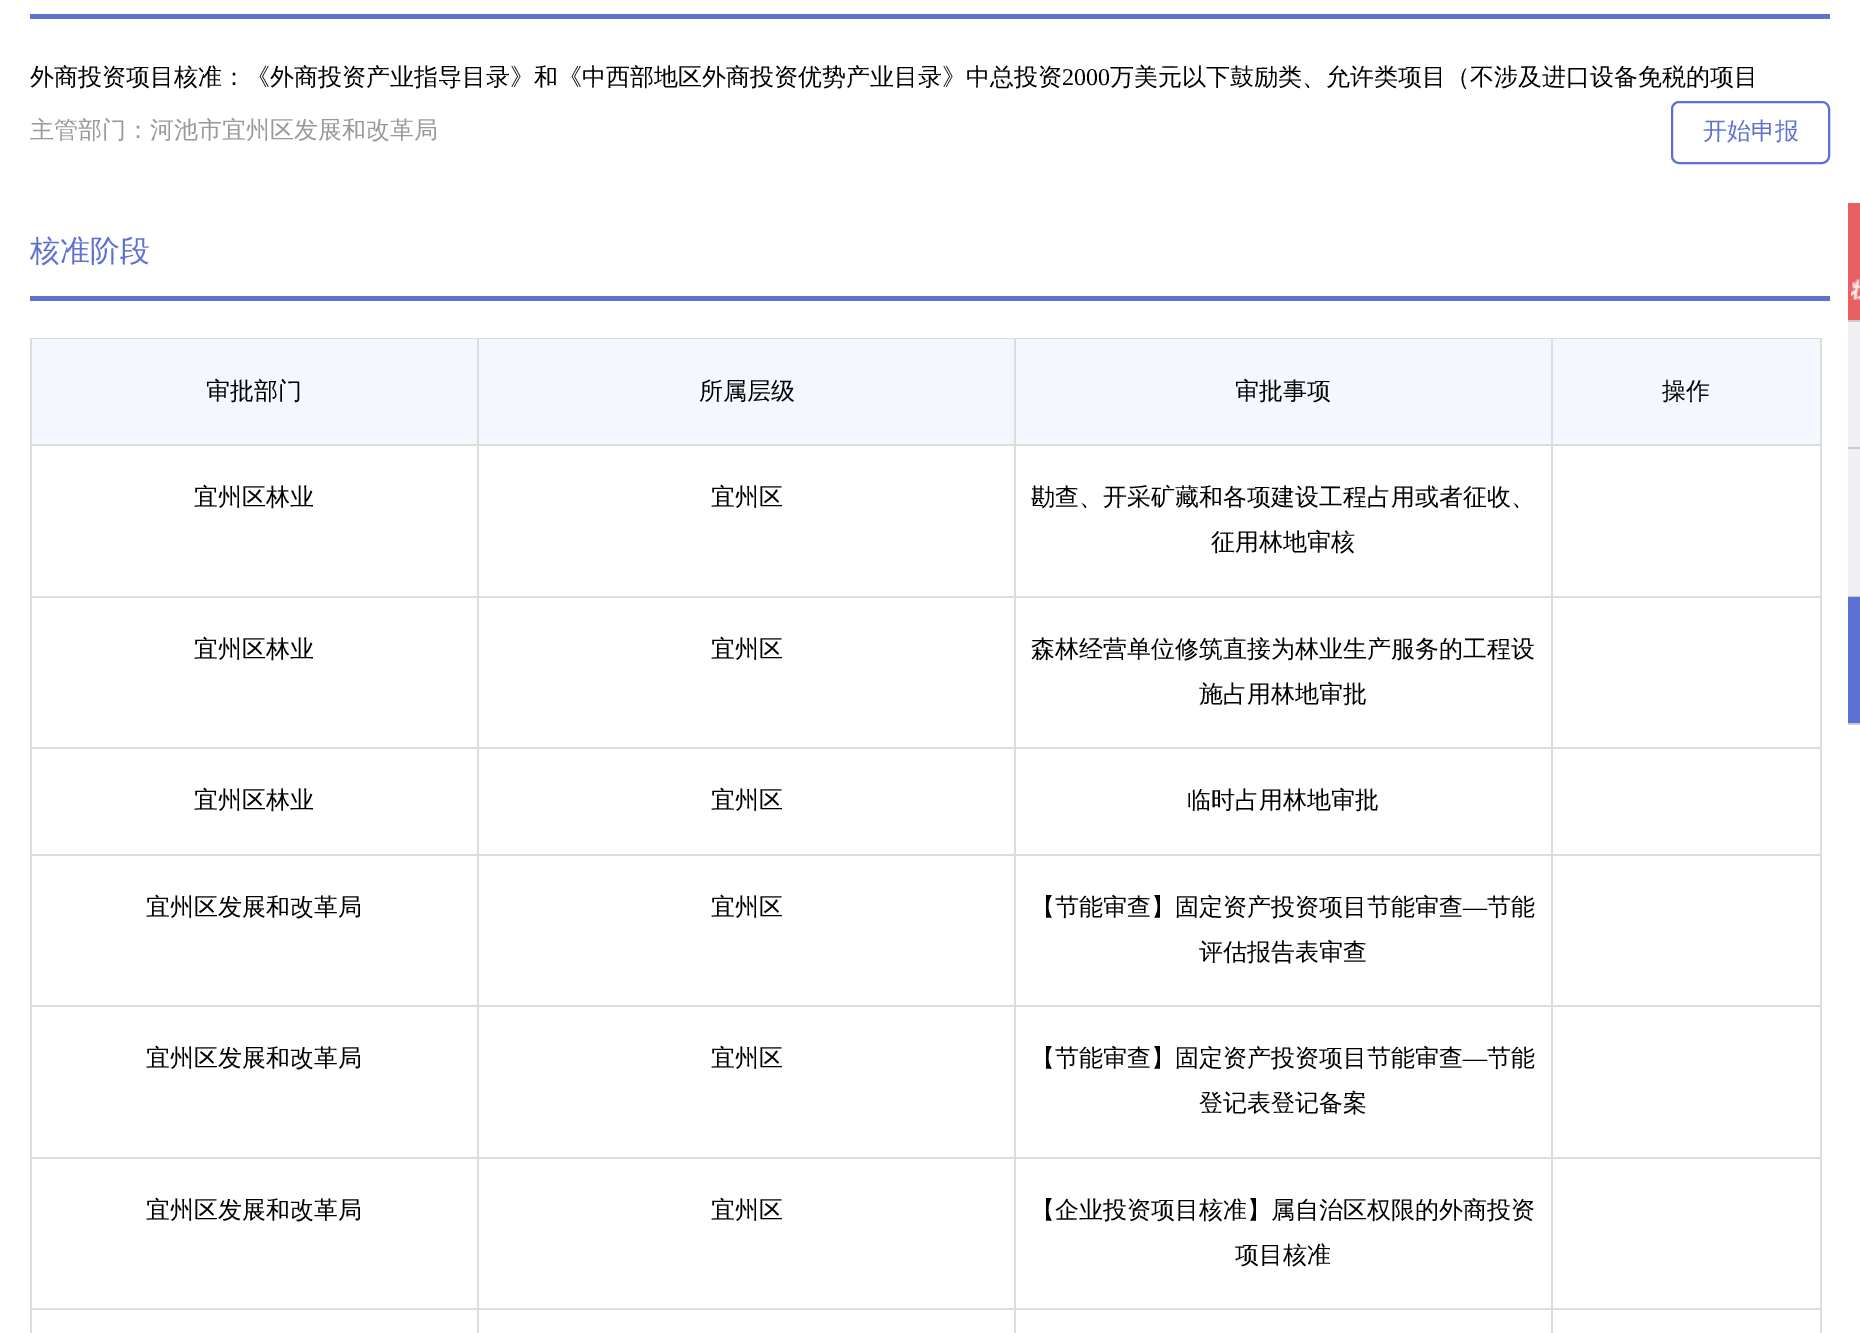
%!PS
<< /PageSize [1860 1333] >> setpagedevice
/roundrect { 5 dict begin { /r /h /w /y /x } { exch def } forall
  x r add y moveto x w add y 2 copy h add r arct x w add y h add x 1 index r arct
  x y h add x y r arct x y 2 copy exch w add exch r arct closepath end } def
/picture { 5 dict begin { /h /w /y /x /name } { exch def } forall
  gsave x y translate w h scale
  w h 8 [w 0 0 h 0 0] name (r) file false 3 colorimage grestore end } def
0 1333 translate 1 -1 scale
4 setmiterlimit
1 setgray
0 0 1860 1333 rectfill
0.365 0.443 0.824 setrgbcolor
30 14 1800 5 rectfill
/WenQuanYiZenHei-Medium [24 0 0 -24 0 0] selectfont
0 setgray
30 85 moveto (外商投资项目核准：《外商投资产业指导目录》和《中西部地区外商投资优势产业目录》中总投资) show
/LiberationSerif-Regular [24 0 0 -24 0 0] selectfont
1062 85 moveto (2000) show
/WenQuanYiZenHei-Medium [24 0 0 -24 0 0] selectfont
1110 85 moveto (万美元以下鼓励类、允许类项目（不涉及进口设备免税的项目) show
0.6 setgray
30 138 moveto (主管部门：河池市宜州区发展和改革局) show
0.365 0.443 0.824 setrgbcolor
2 setlinewidth
1672 102 157 61 7 roundrect stroke
1703 139 moveto (开始申报) show
30 296 1800 5 rectfill
/WenQuanYiZenHei-Medium [30 0 0 -30 0 0] selectfont
30 261 moveto (核准阶段) show
0.867 setgray
30 338 1791 1 rectfill
1820 338 2 995 rectfill
0.957 0.969 0.996 setrgbcolor
32 339 445 105 rectfill
0.867 setgray
30 444 1790 2 rectfill
30 339 2 107 rectfill
/WenQuanYiZenHei-Medium [24 0 0 -24 0 0] selectfont
0 setgray
206 399 moveto (审批部门) show
0.957 0.969 0.996 setrgbcolor
479 339 535 105 rectfill
0.867 setgray
477 339 2 107 rectfill
0 setgray
699 399 moveto (所属层级) show
0.957 0.969 0.996 setrgbcolor
1016 339 535 105 rectfill
0.867 setgray
1014 339 2 107 rectfill
0 setgray
1235 399 moveto (审批事项) show
0.957 0.969 0.996 setrgbcolor
1553 339 267 105 rectfill
0.867 setgray
1551 339 2 107 rectfill
0 setgray
1662 399 moveto (操作) show
0.867 setgray
30 596 1790 2 rectfill
30 446 2 151 rectfill
0 setgray
194 505 moveto (宜州区林业) show
0.867 setgray
477 446 2 151 rectfill
0 setgray
711 505 moveto (宜州区) show
0.867 setgray
1014 446 2 151 rectfill
0 setgray
1031 505 moveto (勘查、开采矿藏和各项建设工程占用或者征收、) show
1211 550 moveto (征用林地审核) show
0.867 setgray
1551 446 2 151 rectfill
30 747 1790 2 rectfill
30 597 2 152 rectfill
0 setgray
194 657 moveto (宜州区林业) show
0.867 setgray
477 597 2 152 rectfill
0 setgray
711 657 moveto (宜州区) show
0.867 setgray
1014 597 2 152 rectfill
0 setgray
1031 657 moveto (森林经营单位修筑直接为林业生产服务的工程设) show
1199 702 moveto (施占用林地审批) show
0.867 setgray
1551 597 2 152 rectfill
30 854 1790 2 rectfill
30 749 2 106 rectfill
0 setgray
194 808 moveto (宜州区林业) show
0.867 setgray
477 749 2 106 rectfill
0 setgray
711 808 moveto (宜州区) show
0.867 setgray
1014 749 2 106 rectfill
0 setgray
1187 808 moveto (临时占用林地审批) show
0.867 setgray
1551 749 2 106 rectfill
30 1005 1790 2 rectfill
30 855 2 152 rectfill
0 setgray
146 915 moveto (宜州区发展和改革局) show
0.867 setgray
477 855 2 152 rectfill
0 setgray
711 915 moveto (宜州区) show
0.867 setgray
1014 855 2 152 rectfill
0 setgray
1031 915 moveto (【节能审查】固定资产投资项目节能审查) show
/LiberationSerif-Regular [24 0 0 -24 0 0] selectfont
1463 915 moveto (—) show
/WenQuanYiZenHei-Medium [24 0 0 -24 0 0] selectfont
1487 915 moveto (节能) show
1199 960 moveto (评估报告表审查) show
0.867 setgray
1551 855 2 152 rectfill
30 1157 1790 2 rectfill
30 1007 2 151 rectfill
0 setgray
146 1066 moveto (宜州区发展和改革局) show
0.867 setgray
477 1007 2 151 rectfill
0 setgray
711 1066 moveto (宜州区) show
0.867 setgray
1014 1007 2 151 rectfill
0 setgray
1031 1066 moveto (【节能审查】固定资产投资项目节能审查) show
/LiberationSerif-Regular [24 0 0 -24 0 0] selectfont
1463 1066 moveto (—) show
/WenQuanYiZenHei-Medium [24 0 0 -24 0 0] selectfont
1487 1066 moveto (节能) show
1199 1111 moveto (登记表登记备案) show
0.867 setgray
1551 1007 2 151 rectfill
30 1308 1790 2 rectfill
30 1158 2 175 rectfill
0 setgray
146 1218 moveto (宜州区发展和改革局) show
0.867 setgray
477 1158 2 175 rectfill
0 setgray
711 1218 moveto (宜州区) show
0.867 setgray
1014 1158 2 175 rectfill
0 setgray
1031 1218 moveto (【企业投资项目核准】属自治区权限的外商投资) show
1235 1263 moveto (项目核准) show
0.867 setgray
1551 1158 2 175 rectfill
0.937 0.937 0.957 setrgbcolor
1848 322 12 274 rectfill
0.914 0.376 0.384 setrgbcolor
1848 203 12 117 rectfill
0.8 setgray
1848 320 12 2 rectfill
(img1.rgb) 1851 278 9 22 picture
1848 447 12 2 rectfill
1848 596 12 1 rectfill
0.365 0.443 0.824 setrgbcolor
1848 597 12 126 rectfill
0.8 setgray
1848 723 12 2 rectfill
showpage
